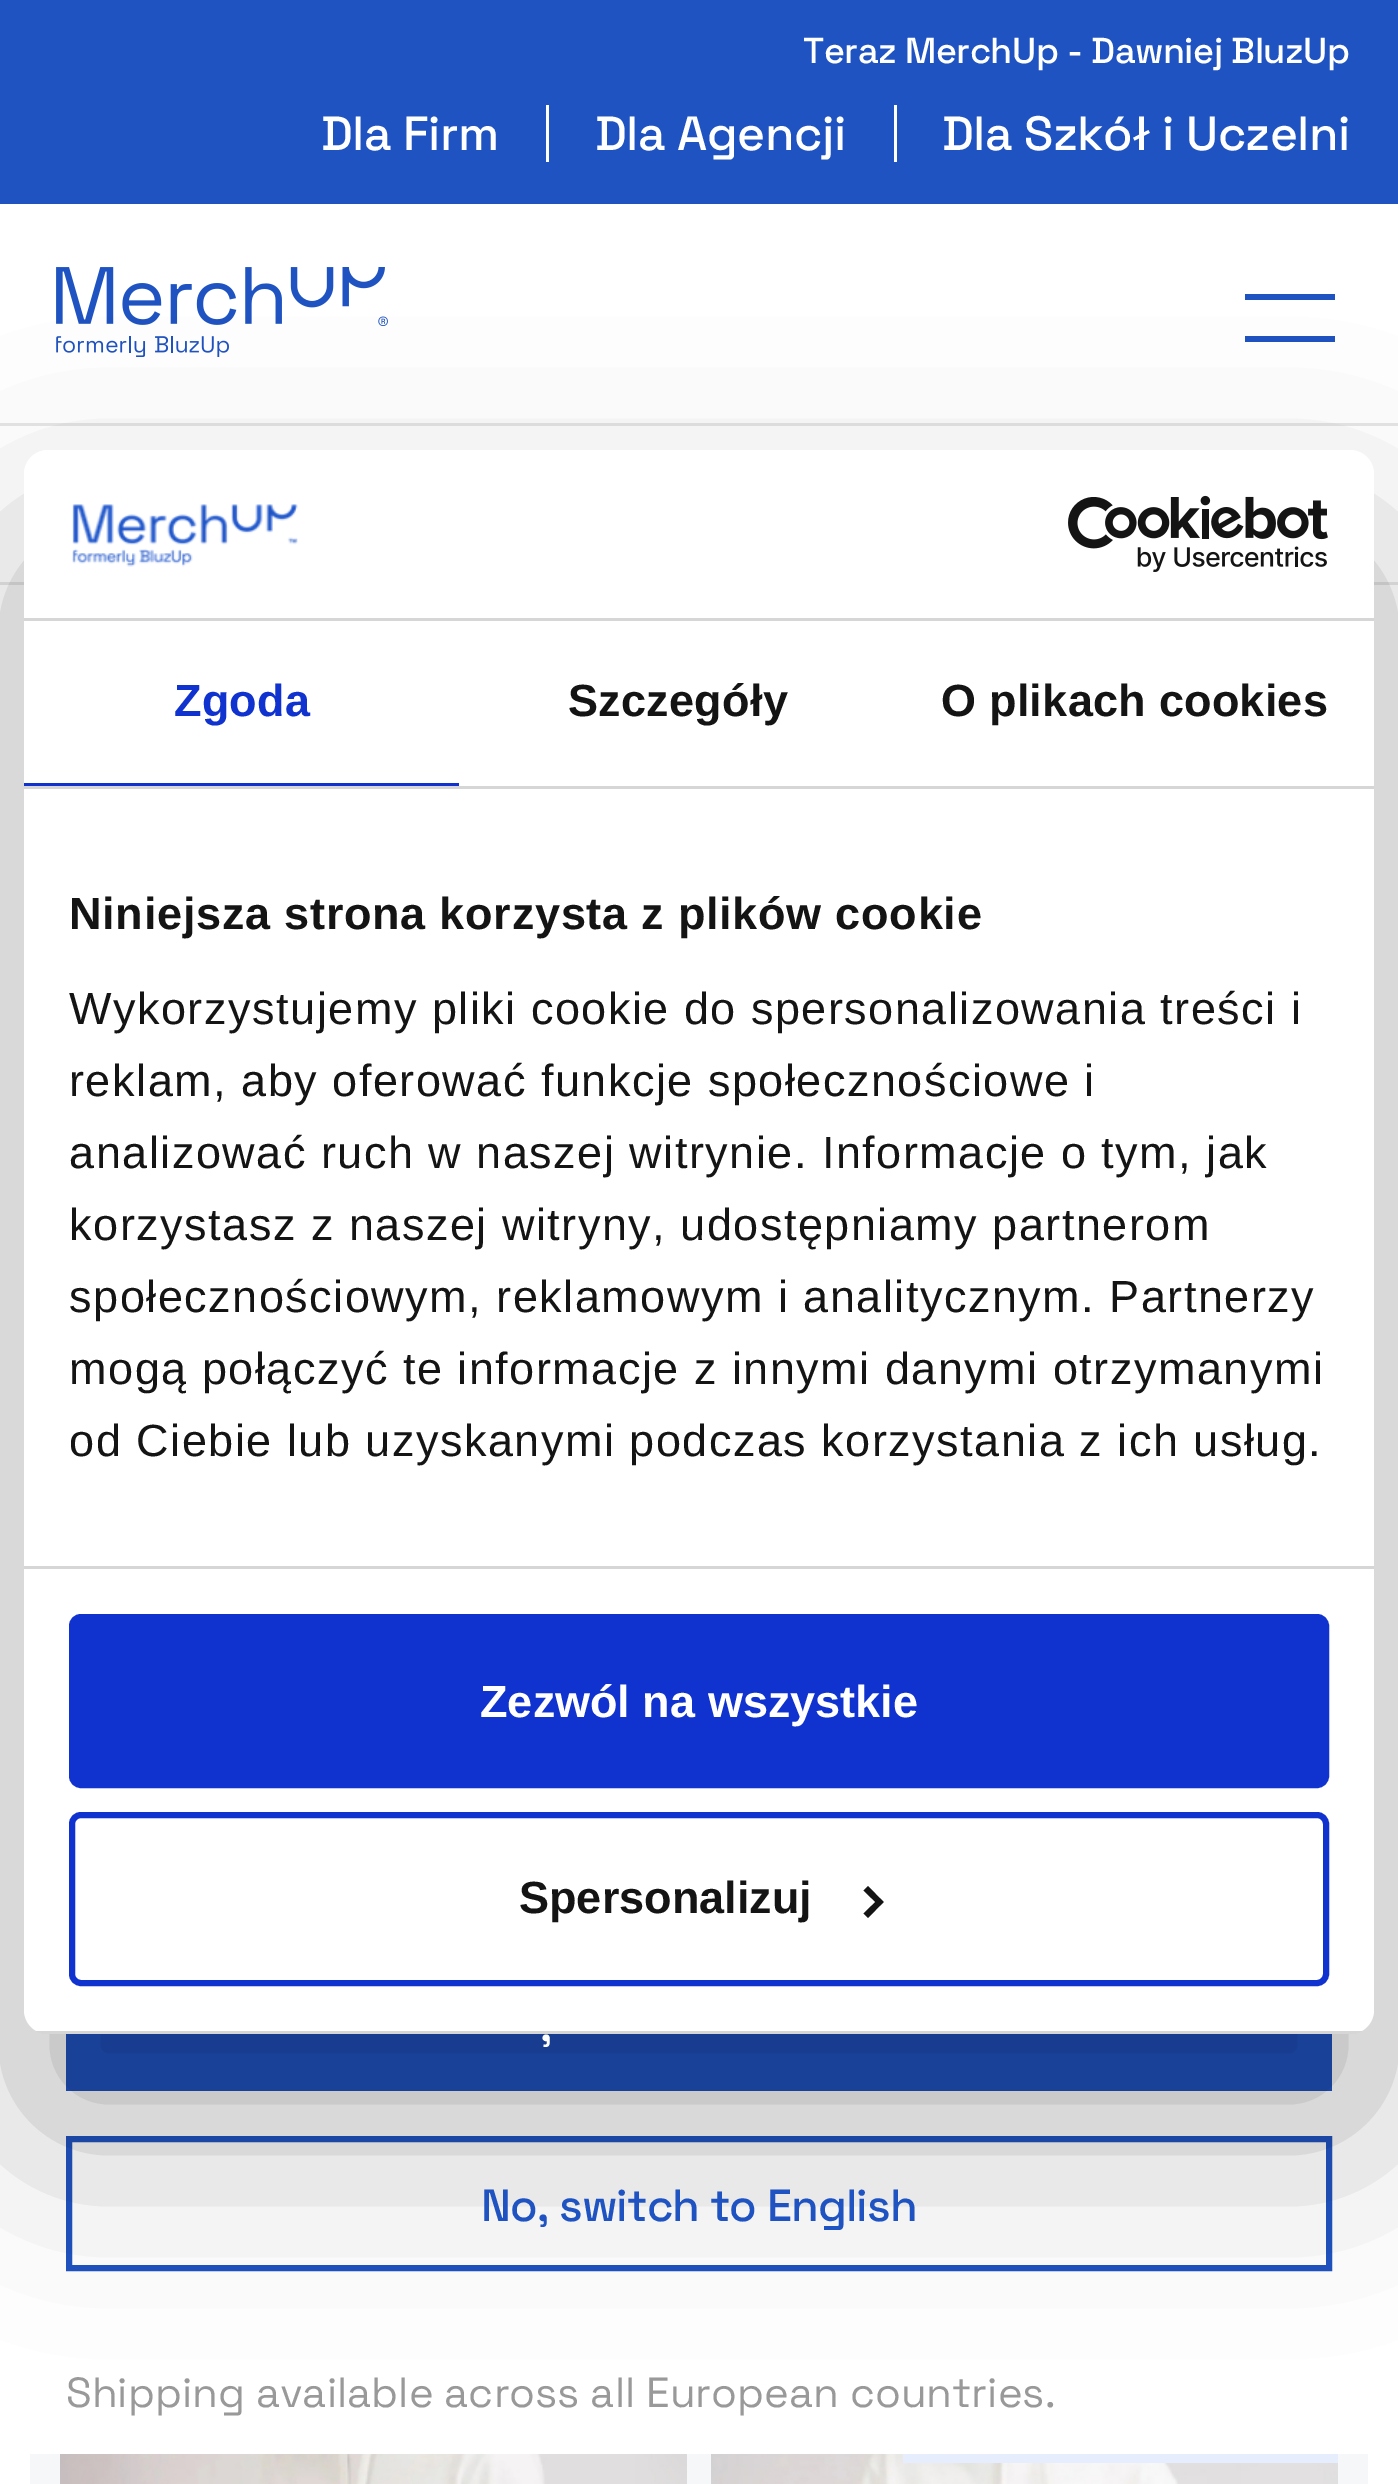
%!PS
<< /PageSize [1398 2484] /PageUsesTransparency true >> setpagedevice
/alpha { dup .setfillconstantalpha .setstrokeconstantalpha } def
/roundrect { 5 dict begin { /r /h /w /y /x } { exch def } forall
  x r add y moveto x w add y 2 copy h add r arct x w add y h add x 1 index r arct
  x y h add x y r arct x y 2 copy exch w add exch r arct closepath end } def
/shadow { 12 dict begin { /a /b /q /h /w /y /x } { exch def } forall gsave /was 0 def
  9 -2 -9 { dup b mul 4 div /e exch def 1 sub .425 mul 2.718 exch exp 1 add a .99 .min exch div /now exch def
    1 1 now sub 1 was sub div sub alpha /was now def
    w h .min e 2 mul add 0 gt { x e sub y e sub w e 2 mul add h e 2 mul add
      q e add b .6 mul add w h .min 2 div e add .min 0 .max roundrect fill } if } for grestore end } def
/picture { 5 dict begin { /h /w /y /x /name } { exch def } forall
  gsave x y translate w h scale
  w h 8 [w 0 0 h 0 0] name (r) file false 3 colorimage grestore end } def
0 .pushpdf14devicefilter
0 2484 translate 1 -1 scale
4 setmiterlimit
1 setgray
0 0 1398 2484 rectfill
0.122 0.325 0.757 setrgbcolor
0 0 1398 204 rectfill
/SpaceGrotesk-Light [36 0 0 -36 0 0] selectfont
1 setgray
803 63 moveto -0.5 0 (Teraz MerchUp - Dawniej BluzUp) ashow
/SpaceGrotesk-Light [48 0 0 -48 0 0] selectfont
321 150 moveto -0.5 0 (Dla Firm) ashow
546 105 3 57 rectfill
595 150 moveto -0.5 0 (Dla Agencji) ashow
894 105 3 57 rectfill
942 150 moveto -0.5 0 (Dla Szkół i Uczelni) ashow
0.902 setgray
0 423 1398 3 rectfill
(img1.rgb) 56 267 332 90 picture
0.122 0.325 0.757 setrgbcolor
1245 294 90 6 rectfill
1245 336 90 6 rectfill
0.902 setgray
0 582 1398 3 rectfill
0.965 0.969 0.976 setrgbcolor
30 2454 1338 30 rectfill
(img2.rgb) 60 2454 627 30 picture
(img3.rgb) 711 2454 627 30 picture
0.902 0.929 0.988 setrgbcolor
903 2454 435 9 rectfill
0.122 0.325 0.757 setrgbcolor
66 2034 1266 57 rectfill
6 setlinewidth
69 2139 1260 129 rectstroke
0 setgray
24 546 1350 1584 24 102 0.3 shadow
1 setgray
24 450 1350 1584 24 roundrect fill
0.839 setgray
24 618 1350 3 rectfill
(img4.rgb) 72 504 226 63 picture
(img5.rgb) 1068 495 260 77 picture
24 786 1350 3 rectfill
0.063 0.196 0.812 setrgbcolor
24 783 435 3 rectfill
/LiberationSans-Bold [45 0 0 -45 0 0] selectfont
174 716 moveto 0.25 0 (Zgoda) ashow
0.078 setgray
568 716 moveto 0.25 0 (Szczegóły) ashow
941 716 moveto 0.25 0 (O plikach cookies) ashow
0.839 setgray
24 1566 1350 3 rectfill
0.078 setgray
69 929 moveto 0.75 0 (Niniejsza strona korzysta z plików cookie) ashow
/LiberationSans-Regular [45 0 0 -45 0 0] selectfont
69 1024 moveto 1.5 0 (Wykorzystujemy pliki cookie do spersonalizowania treści i) ashow
69 1096 moveto 1.5 0 (reklam, aby oferować funkcje społecznościowe i) ashow
69 1168 moveto 1.5 0 (analizować ruch w naszej witrynie. Informacje o tym, jak) ashow
69 1240 moveto 1.5 0 (korzystasz z naszej witryny, udostępniamy partnerom) ashow
69 1312 moveto 1.5 0 (społecznościowym, reklamowym i analitycznym. Partnerzy) ashow
69 1384 moveto 1.5 0 (mogą połączyć te informacje z innymi danymi otrzymanymi) ashow
69 1456 moveto 1.5 0 (od Ciebie lub uzyskanymi podczas korzystania z ich usług.) ashow
gsave
24 450 1350 1584 24 roundrect clip newpath
0.839 setgray
36 2031 1326 3 rectfill
grestore
0.063 0.196 0.812 setrgbcolor
72 1617 1254 168 9 roundrect gsave fill grestore
stroke
/LiberationSans-Bold [45 0 0 -45 0 0] selectfont
1 setgray
480 1717 moveto (Zezwól na wszystkie) show
0.063 0.196 0.812 setrgbcolor
72 1815 1254 168 9 roundrect stroke
0.078 setgray
519 1913 moveto (Spersonalizuj) show
newpath 868 1886 moveto 883.5 1902 lineto 879.5 1906 lineto 863.5 1890.5 lineto closepath fill
newpath 879.5 1898 moveto 883.5 1902 lineto 868 1918 lineto 863.5 1913.5 lineto closepath fill
/SpaceGrotesk-Light [45 0 0 -45 0 0] selectfont
1 setgray
540 2041 moveto -0.9 0 (,) ashow
0.122 0.325 0.757 setrgbcolor
481 2221 moveto -0.9 0 (No, switch to English) ashow
/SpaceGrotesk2-Light [42 0 0 -42 0 0] selectfont
0.6 setgray
66 2407 moveto (Shipping available across all European countries.) show
.poppdf14devicefilter showpage
